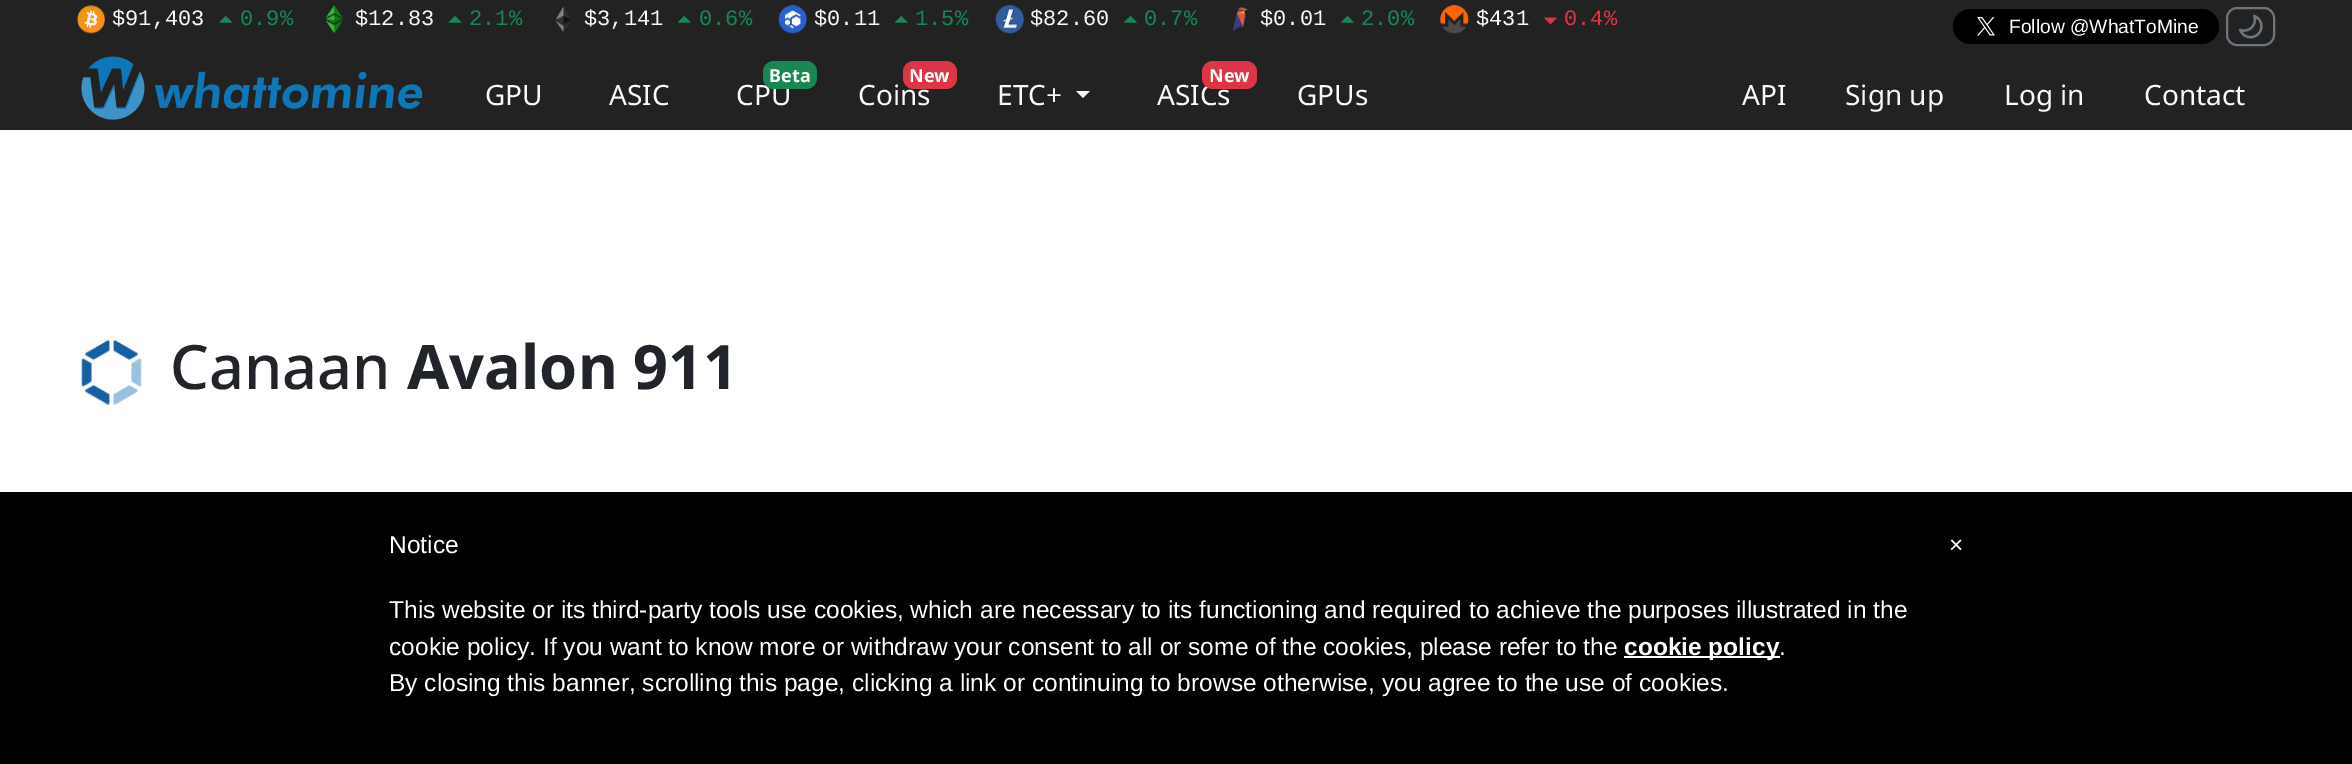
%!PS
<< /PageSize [2352 764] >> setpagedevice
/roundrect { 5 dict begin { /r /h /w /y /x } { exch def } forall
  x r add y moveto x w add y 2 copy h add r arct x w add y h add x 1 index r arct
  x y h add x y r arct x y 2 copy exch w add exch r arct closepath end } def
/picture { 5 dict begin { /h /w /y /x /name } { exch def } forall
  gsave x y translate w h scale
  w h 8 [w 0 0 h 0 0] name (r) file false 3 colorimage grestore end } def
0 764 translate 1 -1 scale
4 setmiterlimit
1 setgray
0 0 2352 764 rectfill
0.133 setgray
0 0 2352 130 rectfill
(img1.rgb) 77 5 28 29 picture
/LiberationMono-Regular [22 0 0 -22 0 0] selectfont
0.973 0.976 0.98 setrgbcolor
112 25 moveto ($91,403) show
(img2.rgb) 219 16 13 7 picture
0.098 0.529 0.329 setrgbcolor
240 25 moveto (0.9%) show
(img3.rgb) 326 5 17 29 picture
0.973 0.976 0.98 setrgbcolor
355 25 moveto ($12.83) show
(img4.rgb) 448 16 14 7 picture
0.098 0.529 0.329 setrgbcolor
469 25 moveto (2.1%) show
(img5.rgb) 556 6 15 27 picture
0.973 0.976 0.98 setrgbcolor
584 25 moveto ($3,141) show
(img6.rgb) 678 16 13 7 picture
0.098 0.529 0.329 setrgbcolor
699 25 moveto (0.6%) show
(img7.rgb) 778 5 29 29 picture
0.973 0.976 0.98 setrgbcolor
814 25 moveto ($0.11) show
(img6.rgb) 895 16 13 7 picture
0.098 0.529 0.329 setrgbcolor
915 25 moveto (1.5%) show
(img8.rgb) 995 5 29 29 picture
0.973 0.976 0.98 setrgbcolor
1030 25 moveto ($82.60) show
(img9.rgb) 1124 16 13 7 picture
0.098 0.529 0.329 setrgbcolor
1144 25 moveto (0.7%) show
(img10.rgb) 1232 7 16 25 picture
0.973 0.976 0.98 setrgbcolor
1260 25 moveto ($0.01) show
(img9.rgb) 1341 16 13 7 picture
0.098 0.529 0.329 setrgbcolor
1361 25 moveto (2.0%) show
(img11.rgb) 1440 5 29 29 picture
0.973 0.976 0.98 setrgbcolor
1476 25 moveto ($431) show
(img12.rgb) 1544 17 13 8 picture
0.863 0.208 0.271 setrgbcolor
1564 25 moveto (0.4%) show
0 setgray
1953 9 266 35 17.5 roundrect fill
(img13.rgb) 1977 17 18 19 picture
/LiberationSans-Regular [19.25 0 0 -19.25 0 0] selectfont
1 setgray
2009 33 moveto (Follow @WhatToMine) show
0.424 0.459 0.49 setrgbcolor
2 setlinewidth
2227 8 47 37 10 roundrect stroke
(img14.rgb) 2239 14 24 25 picture
(img15.rgb) 81 56 342 64 picture
/NotoSans-Regular [28 0 0 -28 0 0] selectfont
0.973 0.976 0.98 setrgbcolor
485 105 moveto (GPU) show
609 105 moveto (ASIC) show
736 105 moveto (CPU) show
0.098 0.529 0.329 setrgbcolor
763 61 54 28 11 roundrect fill
/NotoSans-Bold [18 0 0 -18 0 0] selectfont
1 setgray
769 82 moveto (Beta) show
/NotoSans-Regular [28 0 0 -28 0 0] selectfont
0.973 0.976 0.98 setrgbcolor
858 105 moveto (Coins) show
0.863 0.208 0.271 setrgbcolor
903 61 54 28 11 roundrect fill
/NotoSans-Bold [18 0 0 -18 0 0] selectfont
1 setgray
909 82 moveto (New) show
/NotoSans-Regular [28 0 0 -28 0 0] selectfont
0.973 0.976 0.98 setrgbcolor
997 105 moveto (ETC+) show
newpath 1076 91 moveto 1090 91 lineto 1083 98 lineto closepath fill
1157 105 moveto (ASICs) show
0.863 0.208 0.271 setrgbcolor
1202 61 55 28 11 roundrect fill
/NotoSans-Bold [18 0 0 -18 0 0] selectfont
1 setgray
1209 82 moveto (New) show
/NotoSans-Regular [28 0 0 -28 0 0] selectfont
0.973 0.976 0.98 setrgbcolor
1297 105 moveto (GPUs) show
1742 105 moveto (API) show
1845 105 moveto (Sign up) show
2004 105 moveto (Log in) show
2144 105 moveto (Contact) show
(img16.rgb) 81 339 61 66 picture
/NotoSans-Medium [61.25 0 0 -61.25 0 0] selectfont
0.129 0.145 0.161 setrgbcolor
170 389 moveto (Canaan) show
/NotoSans-Bold [61.25 0 0 -61.25 0 0] selectfont
407 389 moveto (Avalon 911) show
0 setgray
0 492 2352 272 rectfill
/LiberationSans-Regular [24.5 0 0 -24.5 0 0] selectfont
1 setgray
389 553 moveto (Notice) show
389 618 moveto (This website or its third-party tools use cookies, which are necessary to its functioning and required to achieve the purposes illustrated in the) show
389 655 moveto (cookie policy. If you want to know more or withdraw your consent to all or some of the cookies, please refer to the) show
1624 656 156 2 rectfill
/LiberationSans-Bold [24.5 0 0 -24.5 0 0] selectfont
1624 655 moveto (cookie policy) show
/LiberationSans-Regular [24.5 0 0 -24.5 0 0] selectfont
1779 655 moveto (.) show
389 691 moveto (By closing this banner, scrolling this page, clicking a link or continuing to browse otherwise, you agree to the use of cookies.) show
1949 553 moveto (×) show
showpage
